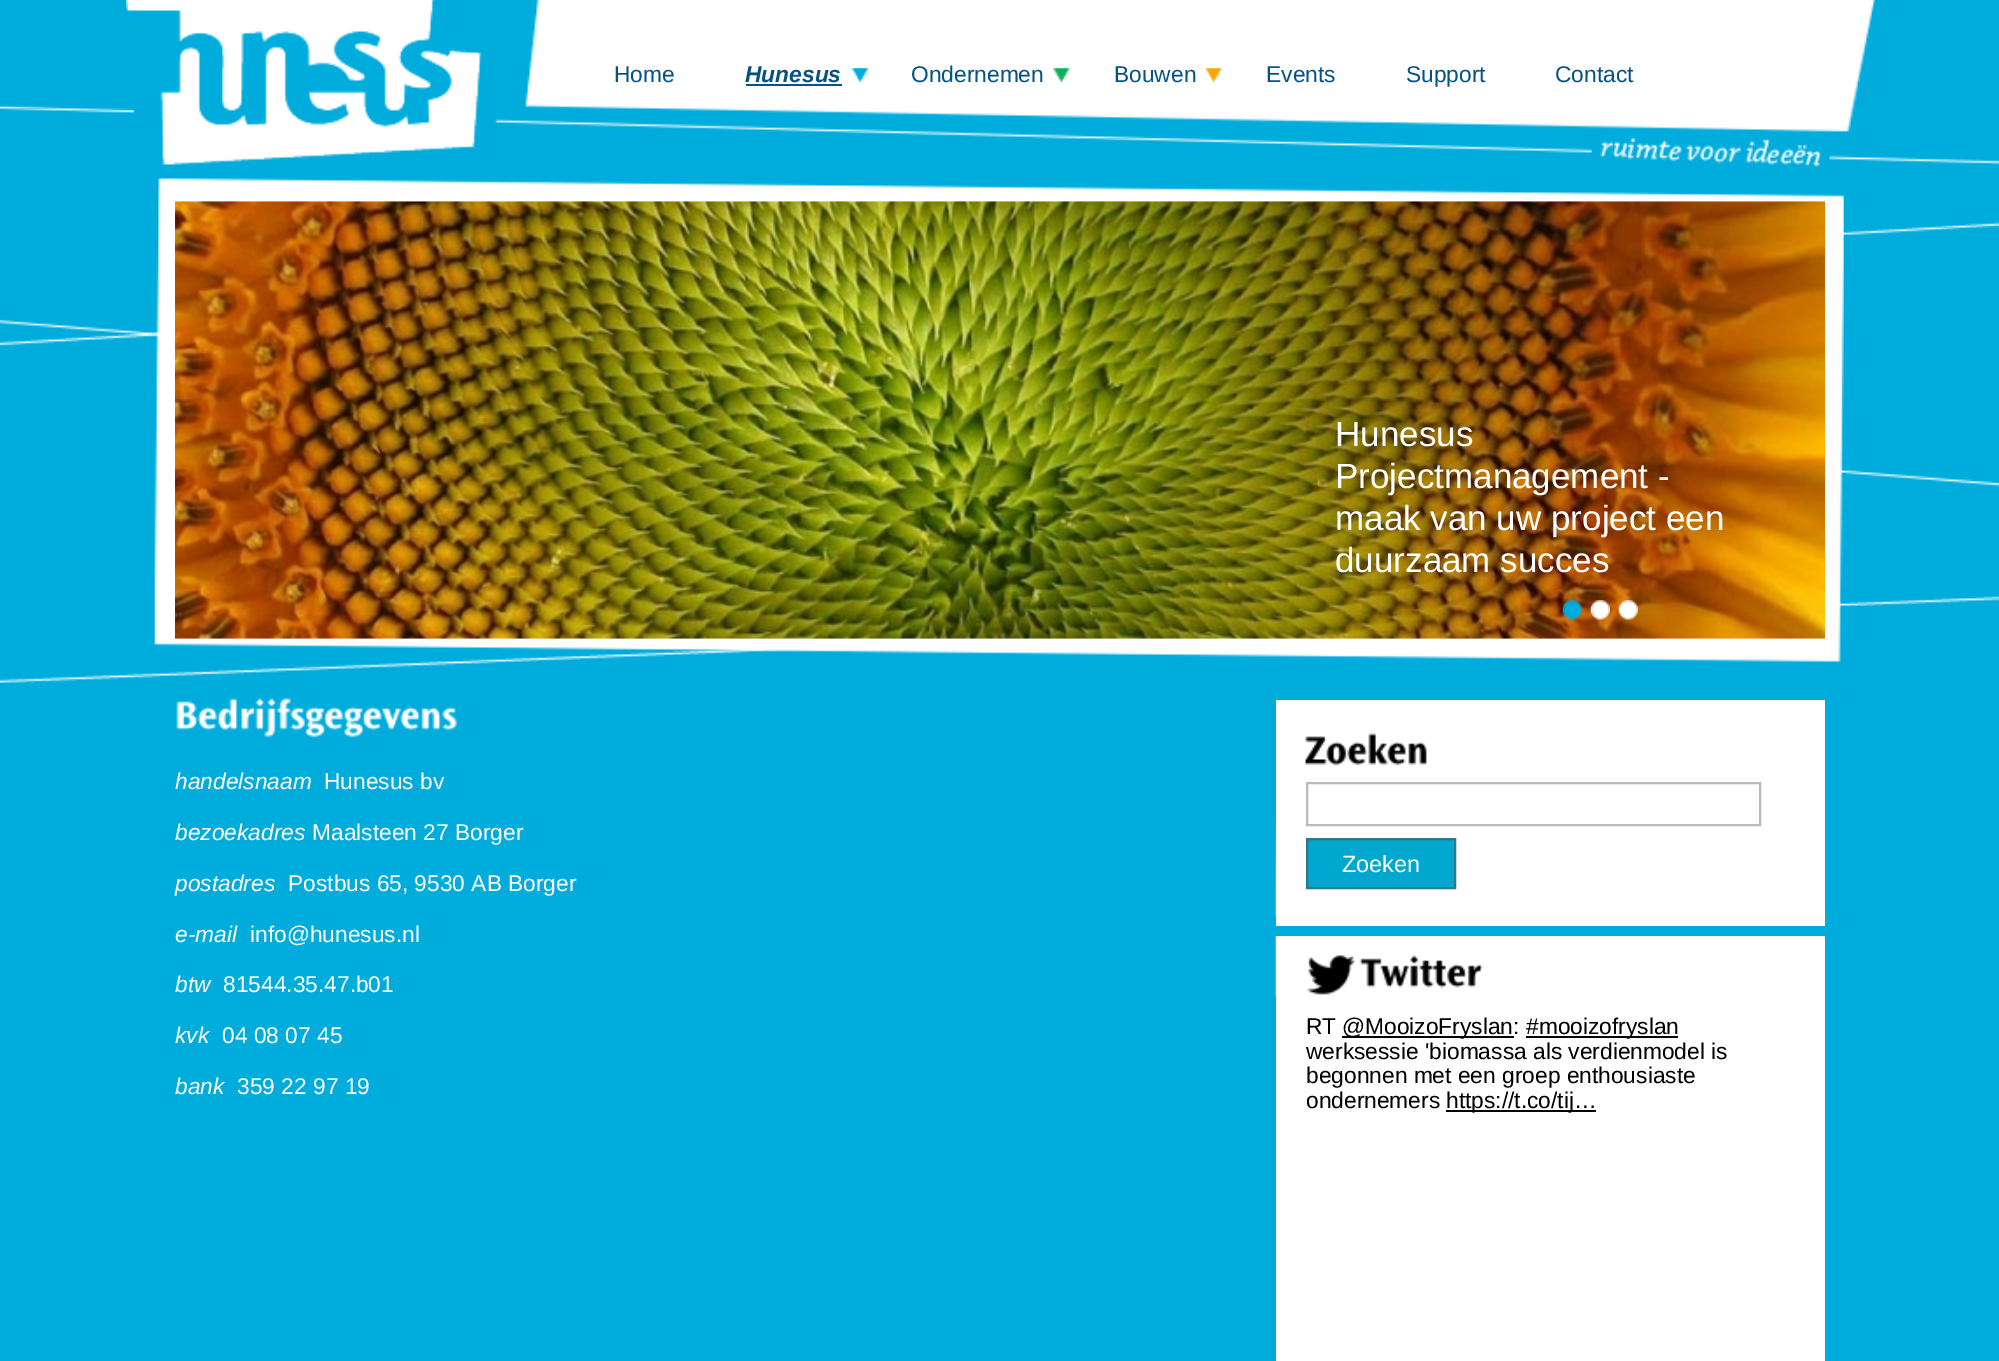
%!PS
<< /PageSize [1999 1361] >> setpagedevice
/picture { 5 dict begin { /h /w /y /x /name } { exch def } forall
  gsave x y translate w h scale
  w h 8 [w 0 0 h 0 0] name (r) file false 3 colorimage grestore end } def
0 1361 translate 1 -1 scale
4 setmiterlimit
0 0.675 0.863 setrgbcolor
0 0 1999 1361 rectfill
(img1.rgb) 0 0 1999 683 picture
(img2.rgb) 126 0 356 165 picture
/LiberationSans-Regular [22.75 0 0 -22.75 0 0] selectfont
0.02 0.325 0.514 setrgbcolor
614 82 moveto (Home) show
(img3.rgb) 852 68 16 15 picture
/LiberationSans-BoldItalic [22.75 0 0 -22.75 0 0] selectfont
745 82 moveto (Hunesus) show
746 84 96 2 rectfill
(img4.rgb) 1053 68 17 15 picture
/LiberationSans-Regular [22.75 0 0 -22.75 0 0] selectfont
911 82 moveto (Ondernemen) show
(img5.rgb) 1205 68 17 15 picture
1114 82 moveto (Bouwen) show
1266 82 moveto (Events) show
1406 82 moveto (Support) show
1555 82 moveto (Contact) show
(img6.rgb) 175 201 1651 438 picture
/LiberationSans-Regular [35 0 0 -35 0 0] selectfont
1 setgray
1335 446 moveto (Hunesus) show
1335 488 moveto (Projectmanagement -) show
1335 530 moveto (maak van uw project een) show
1335 572 moveto (duurzaam succes) show
(img7.rgb) 1562 600 20 20 picture
(img8.rgb) 1590 600 20 20 picture
(img9.rgb) 1618 600 20 20 picture
(img10.rgb) 176 697 282 41 picture
/LiberationSans-Italic [22.75 0 0 -22.75 0 0] selectfont
175 789 moveto (handelsnaam) show
/LiberationSans-Regular [22.75 0 0 -22.75 0 0] selectfont
324 789 moveto (Hunesus bv) show
/LiberationSans-Italic [22.75 0 0 -22.75 0 0] selectfont
175 840 moveto (bezoekadres) show
/LiberationSans-Regular [22.75 0 0 -22.75 0 0] selectfont
312 840 moveto (Maalsteen 27 Borger) show
/LiberationSans-Italic [22.75 0 0 -22.75 0 0] selectfont
175 891 moveto (postadres) show
/LiberationSans-Regular [22.75 0 0 -22.75 0 0] selectfont
288 891 moveto (Postbus 65, 9530 AB Borger) show
/LiberationSans-Italic [22.75 0 0 -22.75 0 0] selectfont
175 942 moveto (e-mail) show
/LiberationSans-Regular [22.75 0 0 -22.75 0 0] selectfont
250 942 moveto (info@hunesus.nl) show
/LiberationSans-Italic [22.75 0 0 -22.75 0 0] selectfont
175 992 moveto (btw) show
/LiberationSans-Regular [22.75 0 0 -22.75 0 0] selectfont
223 992 moveto (81544.35.47.b01) show
/LiberationSans-Italic [22.75 0 0 -22.75 0 0] selectfont
175 1043 moveto (kvk) show
/LiberationSans-Regular [22.75 0 0 -22.75 0 0] selectfont
222 1043 moveto (04 08 07 45) show
/LiberationSans-Italic [22.75 0 0 -22.75 0 0] selectfont
175 1094 moveto (bank) show
/LiberationSans-Regular [22.75 0 0 -22.75 0 0] selectfont
237 1094 moveto (359 22 97 19) show
1276 700 549 226 rectfill
(img11.rgb) 1275 822 1 95 picture
(img12.rgb) 1305 733 122 33 picture
0.729 setgray
2 setlinewidth
1307 783 453 42 rectstroke
0 0.655 0.812 setrgbcolor
newpath 1307 839 moveto 1455 839 lineto 1455 888 lineto 1307 888 lineto closepath gsave fill grestore
0.2 0.463 0.525 setrgbcolor
stroke
/LiberationSans-Regular [23.5 0 0 -23.5 0 0] selectfont
1 setgray
1342 872 moveto (Zoeken) show
1276 936 549 425 rectfill
(img13.rgb) 1275 936 80 60 picture
(img14.rgb) 1359 955 124 33 picture
/LiberationSans-Regular [22.75 0 0 -22.75 0 0] selectfont
0 setgray
1306 1034 moveto (RT) show
1342 1036 172 2 rectfill
1342 1034 moveto (@MooizoFryslan:) show
1526 1036 152 2 rectfill
1526 1034 moveto (#mooizofryslan) show
1306 1059 moveto (werksessie 'biomassa als verdienmodel is) show
1306 1083 moveto (begonnen met een groep enthousiaste) show
1306 1108 moveto (ondernemers) show
1446 1110 150 2 rectfill
1446 1108 moveto (https://t.co/tij…) show
showpage
